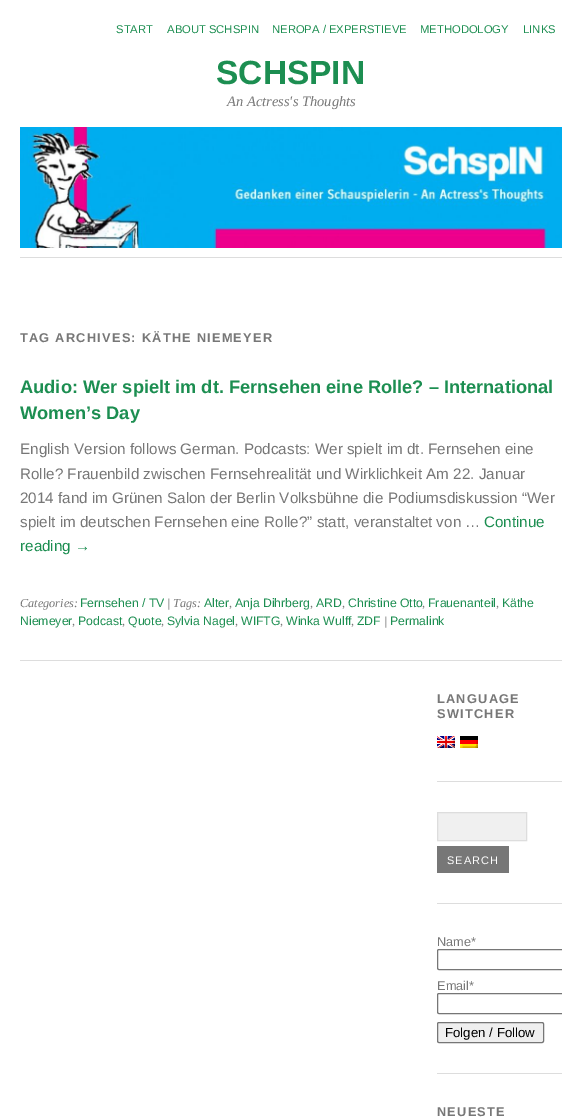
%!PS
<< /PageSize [582 1118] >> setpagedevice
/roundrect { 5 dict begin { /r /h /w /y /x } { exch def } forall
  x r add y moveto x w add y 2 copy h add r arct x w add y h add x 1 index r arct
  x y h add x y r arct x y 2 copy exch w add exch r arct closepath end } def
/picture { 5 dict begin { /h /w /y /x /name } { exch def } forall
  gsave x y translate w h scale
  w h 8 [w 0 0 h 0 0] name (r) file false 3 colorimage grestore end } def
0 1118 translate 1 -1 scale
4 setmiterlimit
1 setgray
0 0 582 1118 rectfill
/LiberationSans-Regular [11.25 0 0 -11.25 0 0] selectfont
0.11 0.557 0.318 setrgbcolor
116 33 moveto (START) show
167 33 moveto (ABOUT SCHSPIN) show
272 33 moveto (NEROPA / EXPERSTIEVE) show
420 33 moveto (METHODOLOGY) show
523 33 moveto (LINKS) show
/LiberationSans-Bold [33.5 0 0 -33.5 0 0] selectfont
216 84 moveto (SCHSPIN) show
/LiberationSerif-Italic [14.5 0 0 -14.5 0 0] selectfont
0.467 setgray
227 106 moveto (An Actress's Thoughts) show
(img1.rgb) 20 127 542 121 picture
0.867 setgray
20 257 542 1 rectfill
/LiberationSans-Bold [12.75 0 0 -12.75 0 0] selectfont
0.467 setgray
20 342 moveto 1.25 0 (TAG ARCHIVES: KÄTHE NIEMEYER) ashow
0.867 setgray
20 660 542 1 rectfill
/LiberationSans-Bold [18.25 0 0 -18.25 0 0] selectfont
0.11 0.557 0.318 setrgbcolor
20 393 moveto (Audio: Wer spielt im dt. Fernsehen eine Rolle? – International) show
20 419 moveto (Women’s Day) show
/LiberationSans-Regular [15.2 0 0 -15.2 0 0] selectfont
0.467 setgray
20 454 moveto (English Version follows German. Podcasts: Wer spielt im dt. Fernsehen eine) show
20 479 moveto (Rolle? Frauenbild zwischen Fernsehrealität und Wirklichkeit Am 22. Januar) show
20 503 moveto (2014 fand im Grünen Salon der Berlin Volksbühne die Podiumsdiskussion “Wer) show
20 527 moveto (spielt im deutschen Fernsehen eine Rolle?” statt, veranstaltet von …) show
0.11 0.557 0.318 setrgbcolor
484 527 moveto (Continue) show
20 551 moveto (reading →) show
/LiberationSerif-Italic [12.25 0 0 -12.25 0 0] selectfont
0.467 setgray
20 607 moveto (Categories:) show
/LiberationSans-Regular [12.25 0 0 -12.25 0 0] selectfont
0.11 0.557 0.318 setrgbcolor
80 607 moveto (Fernsehen / TV) show
/LiberationSerif-Italic [12.25 0 0 -12.25 0 0] selectfont
0.467 setgray
167 607 moveto (| Tags:) show
/LiberationSans-Regular [12.25 0 0 -12.25 0 0] selectfont
0.11 0.557 0.318 setrgbcolor
204 607 moveto (Alter) show
/LiberationSerif-Italic [12.25 0 0 -12.25 0 0] selectfont
0.467 setgray
229 607 moveto (,) show
/LiberationSans-Regular [12.25 0 0 -12.25 0 0] selectfont
0.11 0.557 0.318 setrgbcolor
235 607 moveto (Anja Dihrberg) show
/LiberationSerif-Italic [12.25 0 0 -12.25 0 0] selectfont
0.467 setgray
310 607 moveto (,) show
/LiberationSans-Regular [12.25 0 0 -12.25 0 0] selectfont
0.11 0.557 0.318 setrgbcolor
316 607 moveto (ARD) show
/LiberationSerif-Italic [12.25 0 0 -12.25 0 0] selectfont
0.467 setgray
342 607 moveto (,) show
/LiberationSans-Regular [12.25 0 0 -12.25 0 0] selectfont
0.11 0.557 0.318 setrgbcolor
348 607 moveto (Christine Otto) show
/LiberationSerif-Italic [12.25 0 0 -12.25 0 0] selectfont
0.467 setgray
422 607 moveto (,) show
/LiberationSans-Regular [12.25 0 0 -12.25 0 0] selectfont
0.11 0.557 0.318 setrgbcolor
428 607 moveto (Frauenanteil) show
/LiberationSerif-Italic [12.25 0 0 -12.25 0 0] selectfont
0.467 setgray
496 607 moveto (,) show
/LiberationSans-Regular [12.25 0 0 -12.25 0 0] selectfont
0.11 0.557 0.318 setrgbcolor
502 607 moveto (Käthe) show
20 625 moveto (Niemeyer) show
/LiberationSerif-Italic [12.25 0 0 -12.25 0 0] selectfont
0.467 setgray
72 625 moveto (,) show
/LiberationSans-Regular [12.25 0 0 -12.25 0 0] selectfont
0.11 0.557 0.318 setrgbcolor
78 625 moveto (Podcast) show
/LiberationSerif-Italic [12.25 0 0 -12.25 0 0] selectfont
0.467 setgray
122 625 moveto (,) show
/LiberationSans-Regular [12.25 0 0 -12.25 0 0] selectfont
0.11 0.557 0.318 setrgbcolor
128 625 moveto (Quote) show
/LiberationSerif-Italic [12.25 0 0 -12.25 0 0] selectfont
0.467 setgray
161 625 moveto (,) show
/LiberationSans-Regular [12.25 0 0 -12.25 0 0] selectfont
0.11 0.557 0.318 setrgbcolor
167 625 moveto (Sylvia Nagel) show
/LiberationSerif-Italic [12.25 0 0 -12.25 0 0] selectfont
0.467 setgray
235 625 moveto (,) show
/LiberationSans-Regular [12.25 0 0 -12.25 0 0] selectfont
0.11 0.557 0.318 setrgbcolor
241 625 moveto (WIFTG) show
/LiberationSerif-Italic [12.25 0 0 -12.25 0 0] selectfont
0.467 setgray
280 625 moveto (,) show
/LiberationSans-Regular [12.25 0 0 -12.25 0 0] selectfont
0.11 0.557 0.318 setrgbcolor
286 625 moveto (Winka Wulff) show
/LiberationSerif-Italic [12.25 0 0 -12.25 0 0] selectfont
0.467 setgray
351 625 moveto (,) show
/LiberationSans-Regular [12.25 0 0 -12.25 0 0] selectfont
0.11 0.557 0.318 setrgbcolor
357 625 moveto (ZDF) show
/LiberationSerif-Italic [12.25 0 0 -12.25 0 0] selectfont
0.467 setgray
384 625 moveto (|) show
/LiberationSans-Regular [12.25 0 0 -12.25 0 0] selectfont
0.11 0.557 0.318 setrgbcolor
390 625 moveto (Permalink) show
0.867 setgray
437 781 125 1 rectfill
/LiberationSans-Bold [12.75 0 0 -12.75 0 0] selectfont
0.467 setgray
437 703 moveto 1.25 0 (LANGUAGE) ashow
437 718 moveto 1.25 0 (SWITCHER) ashow
(img2.rgb) 437 736 18 12 picture
(img3.rgb) 460 736 18 12 picture
0.867 setgray
437 903 125 1 rectfill
0.941 setgray
newpath 437.5 812.5 moveto 526.5 812.5 lineto 526.5 840.5 lineto 437.5 840.5 lineto closepath gsave fill grestore
0.867 setgray
stroke
0.467 setgray
437 846 72 27 rectfill
/LiberationSans-Regular [11 0 0 -11 0 0] selectfont
1 setgray
447 864 moveto 1 0 (SEARCH) ashow
0.867 setgray
437 1073 125 1 rectfill
/LiberationSans-Regular [12.75 0 0 -12.75 0 0] selectfont
0.467 setgray
437 946 moveto (Name*) show
gsave
437 934 125 139 rectclip
0.463 setgray
437.5 949.5 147 20 1.5 roundrect stroke
grestore
437 990 moveto (Email*) show
gsave
437 934 125 139 rectclip
0.463 setgray
437.5 993.5 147 20 1.5 roundrect stroke
grestore
0.937 setgray
437.5 1022.5 106 20 1.5 roundrect gsave fill grestore
0.463 setgray
stroke
/LiberationSans-Regular [13.25 0 0 -13.25 0 0] selectfont
0 setgray
445 1037 moveto (Folgen / Follow) show
/LiberationSans-Bold [12.75 0 0 -12.75 0 0] selectfont
0.467 setgray
437 1116 moveto 1.25 0 (NEUESTE) ashow
showpage
